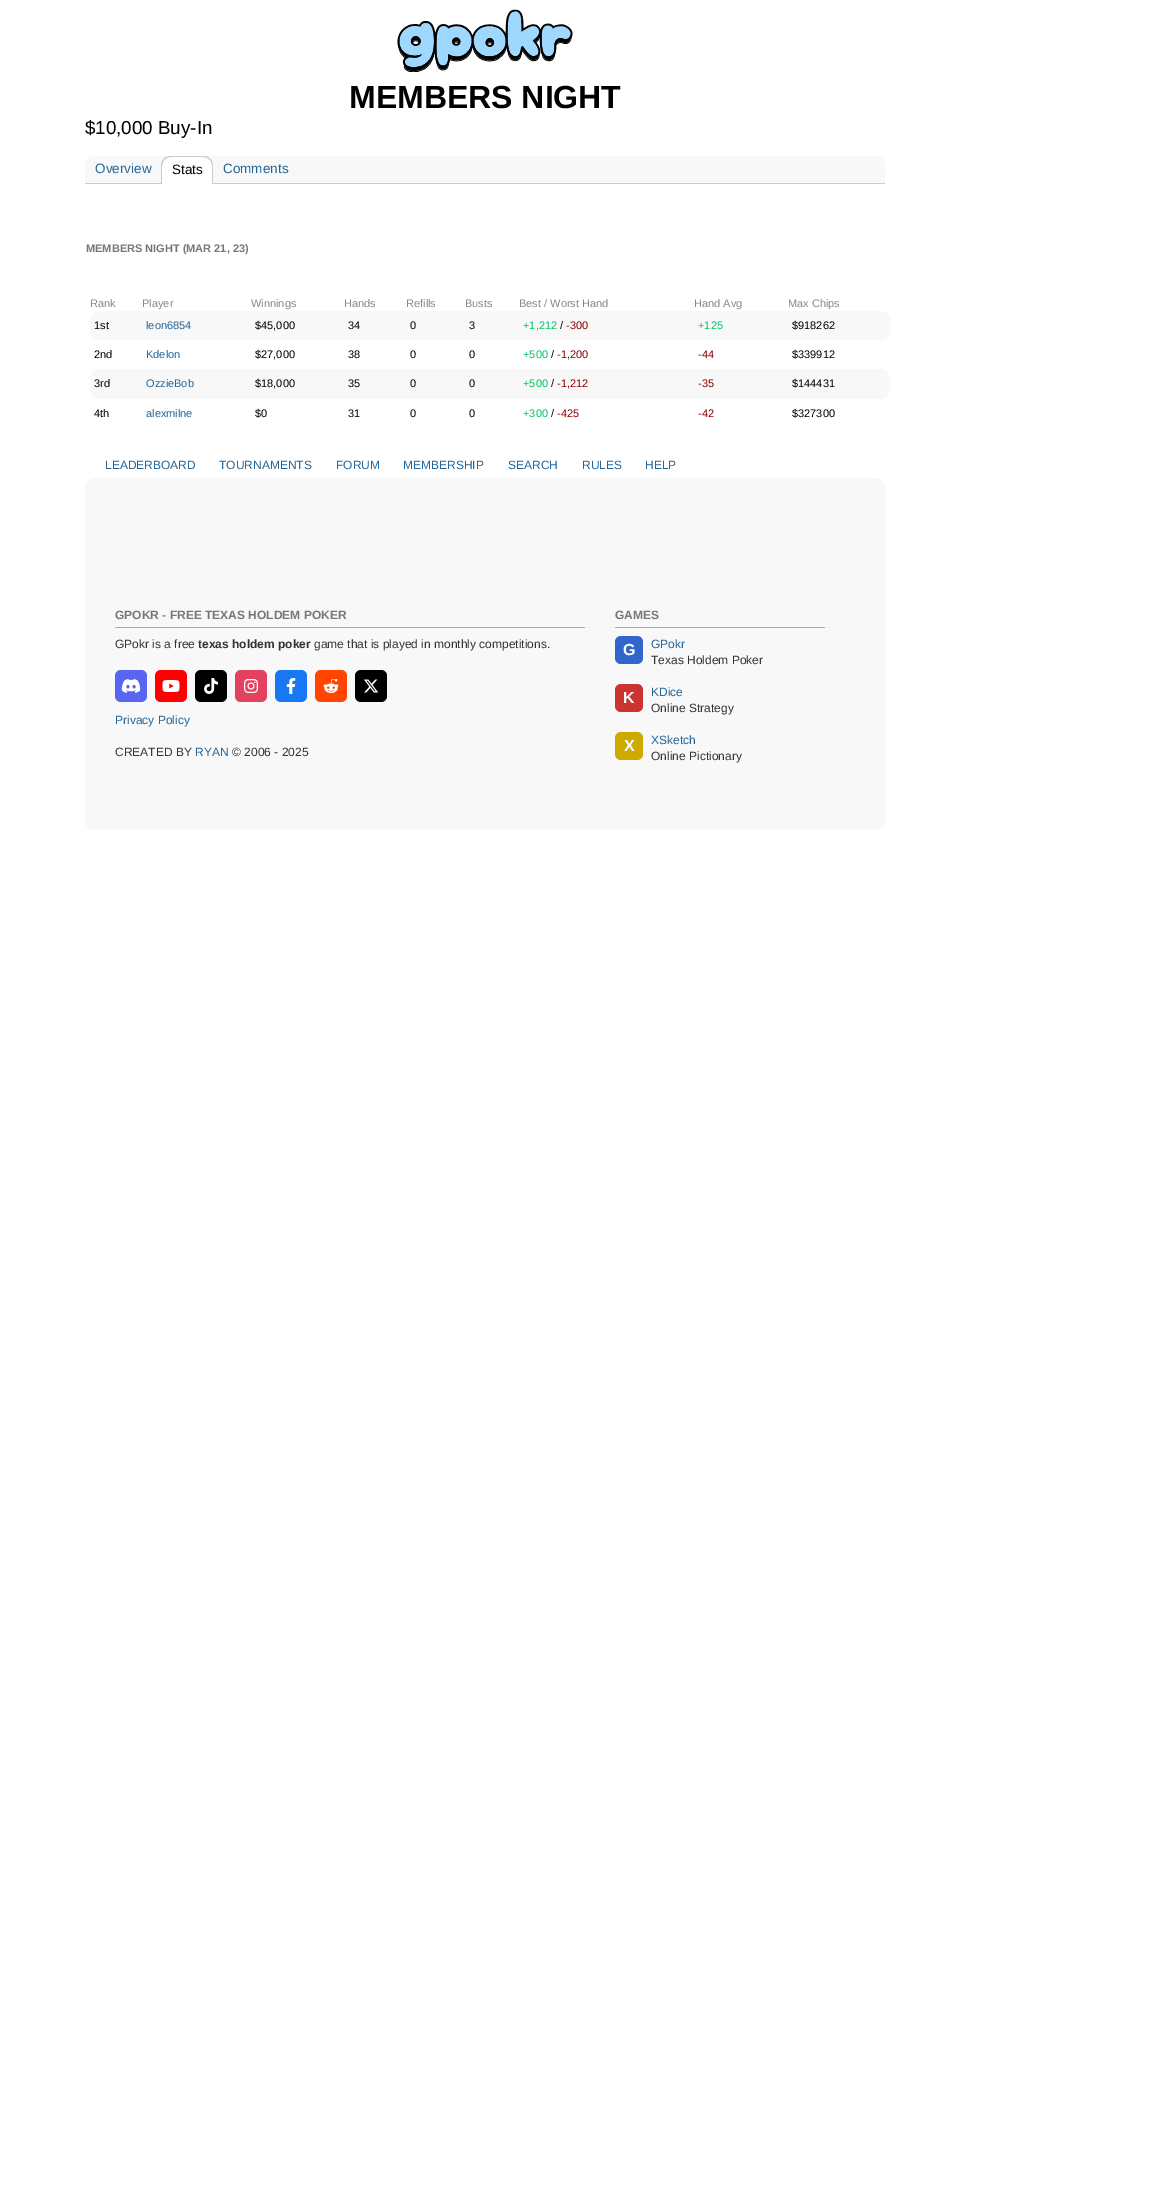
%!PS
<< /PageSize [1170 2201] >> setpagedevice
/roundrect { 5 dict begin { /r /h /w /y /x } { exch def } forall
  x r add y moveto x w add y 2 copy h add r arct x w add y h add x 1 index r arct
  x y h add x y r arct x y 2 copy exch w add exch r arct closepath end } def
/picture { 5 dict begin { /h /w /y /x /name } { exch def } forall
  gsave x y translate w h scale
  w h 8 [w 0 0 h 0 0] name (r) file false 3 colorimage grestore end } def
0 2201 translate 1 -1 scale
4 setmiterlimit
1 setgray
0 0 1170 2201 rectfill
(img1.rgb) 397 9 176 63 picture
/LiberationSans-Bold [32 0 0 -32 0 0] selectfont
0 setgray
349 108 moveto (MEMBERS NIGHT) show
/LiberationSans-Regular [18.75 0 0 -18.75 0 0] selectfont
85 134 moveto ($10,000 Buy-In) show
0.973 setgray
newpath 95 156 moveto 875 156 lineto 880.5 156 885 160.5 885 166 curveto 885 184 lineto 85 184 lineto 85 166 lineto 85 160.5 89.5 156 95 156 curveto closepath fill
0.8 setgray
85 183 76 1 rectfill
/LiberationSans-Regular [13.5 0 0 -13.5 0 0] selectfont
0.133 0.4 0.6 setrgbcolor
95 173 moveto (Overview) show
1 setgray
newpath 171 156 moveto 203 156 lineto 208.5 156 213 160.5 213 166 curveto 213 184 lineto 161 184 lineto 161 166 lineto 161 160.5 165.5 156 171 156 curveto closepath fill
0.8 setgray
newpath 171 156 moveto 203 156 lineto 209 156 213 160 213 166 curveto 213 184 lineto 161 184 lineto 161 166 lineto 161 160 165 156 171 156 curveto closepath 171 157 moveto 203 157 lineto 208 157 212 161 212 166 curveto 212 184 lineto 162 184 lineto 162 166 lineto 162 161 166 157 171 157 curveto closepath eofill
0 setgray
172 174 moveto (Stats) show
0.8 setgray
213 183 672 1 rectfill
0.133 0.4 0.6 setrgbcolor
223 173 moveto (Comments) show
/LiberationSans-Bold [11 0 0 -11 0 0] selectfont
0.467 setgray
86 252 moveto (MEMBERS NIGHT \(MAR 21, 23\)) show
/LiberationSans-Regular [11 0 0 -11 0 0] selectfont
0.533 setgray
90 307 moveto (Rank) show
142 307 moveto (Player) show
251 307 moveto (Winnings) show
344 307 moveto (Hands) show
406 307 moveto (Refills) show
465 307 moveto (Busts) show
519 307 moveto (Best / Worst Hand) show
694 307 moveto (Hand Avg) show
788 307 moveto (Max Chips) show
0.973 setgray
90 311 800 29 10 roundrect fill
0 setgray
94 329 moveto (1st) show
0.133 0.4 0.6 setrgbcolor
146 329 moveto (leon6854) show
0 setgray
255 329 moveto ($45,000) show
348 329 moveto (34) show
410 329 moveto (0) show
469 329 moveto (3) show
0.008 0.769 0.369 setrgbcolor
523 329 moveto (+1,212) show
0 setgray
560 329 moveto (/) show
0.533 0 0 setrgbcolor
566 329 moveto (-300) show
0.008 0.769 0.369 setrgbcolor
698 329 moveto (+125) show
0 setgray
792 329 moveto ($918262) show
94 358 moveto (2nd) show
0.133 0.4 0.6 setrgbcolor
146 358 moveto (Kdelon) show
0 setgray
255 358 moveto ($27,000) show
348 358 moveto (38) show
410 358 moveto (0) show
469 358 moveto (0) show
0.008 0.769 0.369 setrgbcolor
523 358 moveto (+500) show
0 setgray
551 358 moveto (/) show
0.533 0 0 setrgbcolor
557 358 moveto (-1,200) show
698 358 moveto (-44) show
0 setgray
792 358 moveto ($339912) show
0.973 setgray
90 369 800 30 10 roundrect fill
0 setgray
94 387 moveto (3rd) show
0.133 0.4 0.6 setrgbcolor
146 387 moveto (OzzieBob) show
0 setgray
255 387 moveto ($18,000) show
348 387 moveto (35) show
410 387 moveto (0) show
469 387 moveto (0) show
0.008 0.769 0.369 setrgbcolor
523 387 moveto (+500) show
0 setgray
551 387 moveto (/) show
0.533 0 0 setrgbcolor
557 387 moveto (-1,212) show
698 387 moveto (-35) show
0 setgray
792 387 moveto ($144431) show
94 417 moveto (4th) show
0.133 0.4 0.6 setrgbcolor
146 417 moveto (alexmilne) show
0 setgray
255 417 moveto ($0) show
348 417 moveto (31) show
410 417 moveto (0) show
469 417 moveto (0) show
0.008 0.769 0.369 setrgbcolor
523 417 moveto (+300) show
0 setgray
551 417 moveto (/) show
0.533 0 0 setrgbcolor
557 417 moveto (-425) show
698 417 moveto (-42) show
0 setgray
792 417 moveto ($327300) show
/LiberationSans-Regular [12 0 0 -12 0 0] selectfont
0.133 0.4 0.6 setrgbcolor
105 469 moveto (LEADERBOARD) show
219 469 moveto (TOURNAMENTS) show
336 469 moveto (FORUM) show
403 469 moveto (MEMBERSHIP) show
508 469 moveto (SEARCH) show
582 469 moveto (RULES) show
645 469 moveto (HELP) show
0.973 setgray
85 478 800 352 10 roundrect fill
0.667 setgray
115 627 470 1 rectfill
/LiberationSans-Bold [12 0 0 -12 0 0] selectfont
0.467 setgray
115 619 moveto (GPOKR - FREE TEXAS HOLDEM POKER) show
/LiberationSans-Regular [12 0 0 -12 0 0] selectfont
0.2 setgray
115 648 moveto (GPokr is a free) show
/LiberationSans-Bold [12 0 0 -12 0 0] selectfont
198 648 moveto (texas holdem poker) show
/LiberationSans-Regular [12 0 0 -12 0 0] selectfont
314 648 moveto (game that is played in monthly competitions.) show
0.345 0.396 0.949 setrgbcolor
115 670 32 32 6 roundrect fill
(img2.rgb) 121 679 20 14 picture
1 0 0 setrgbcolor
155 670 32 32 6 roundrect fill
(img3.rgb) 162 680 18 12 picture
0 setgray
195 670 32 32 6 roundrect fill
(img4.rgb) 204 678 14 16 picture
0.894 0.251 0.373 setrgbcolor
235 670 32 32 6 roundrect fill
(img5.rgb) 244 679 14 14 picture
0.094 0.467 0.949 setrgbcolor
275 670 32 32 6 roundrect fill
(img6.rgb) 286 678 10 16 picture
1 0.271 0 setrgbcolor
315 670 32 32 6 roundrect fill
(img7.rgb) 323 679 16 14 picture
0 setgray
355 670 32 32 6 roundrect fill
(img8.rgb) 364 679 15 14 picture
0.133 0.4 0.6 setrgbcolor
115 724 moveto (Privacy Policy) show
0.2 setgray
115 756 moveto (CREATED BY) show
0.133 0.4 0.6 setrgbcolor
195 756 moveto (RYAN) show
0.2 setgray
232 756 moveto (© 2006 - 2025) show
0.667 setgray
615 627 210 1 rectfill
/LiberationSans-Bold [12 0 0 -12 0 0] selectfont
0.467 setgray
615 619 moveto (GAMES) show
0.2 0.4 0.8 setrgbcolor
615 636 28 28 6 roundrect fill
/LiberationSans-Bold [16 0 0 -16 0 0] selectfont
1 setgray
623 655 moveto (G) show
/LiberationSans-Regular [12 0 0 -12 0 0] selectfont
0.133 0.4 0.6 setrgbcolor
651 648 moveto (GPokr) show
0.2 setgray
651 664 moveto (Texas Holdem Poker) show
0.8 0.2 0.2 setrgbcolor
615 684 28 28 6 roundrect fill
/LiberationSans-Bold [16 0 0 -16 0 0] selectfont
1 setgray
623 703 moveto (K) show
/LiberationSans-Regular [12 0 0 -12 0 0] selectfont
0.133 0.4 0.6 setrgbcolor
651 696 moveto (KDice) show
0.2 setgray
651 712 moveto (Online Strategy) show
0.8 0.667 0 setrgbcolor
615 732 28 28 6 roundrect fill
/LiberationSans-Bold [16 0 0 -16 0 0] selectfont
1 setgray
624 751 moveto (X) show
/LiberationSans-Regular [12 0 0 -12 0 0] selectfont
0.133 0.4 0.6 setrgbcolor
651 744 moveto (XSketch) show
0.2 setgray
651 760 moveto (Online Pictionary) show
showpage
